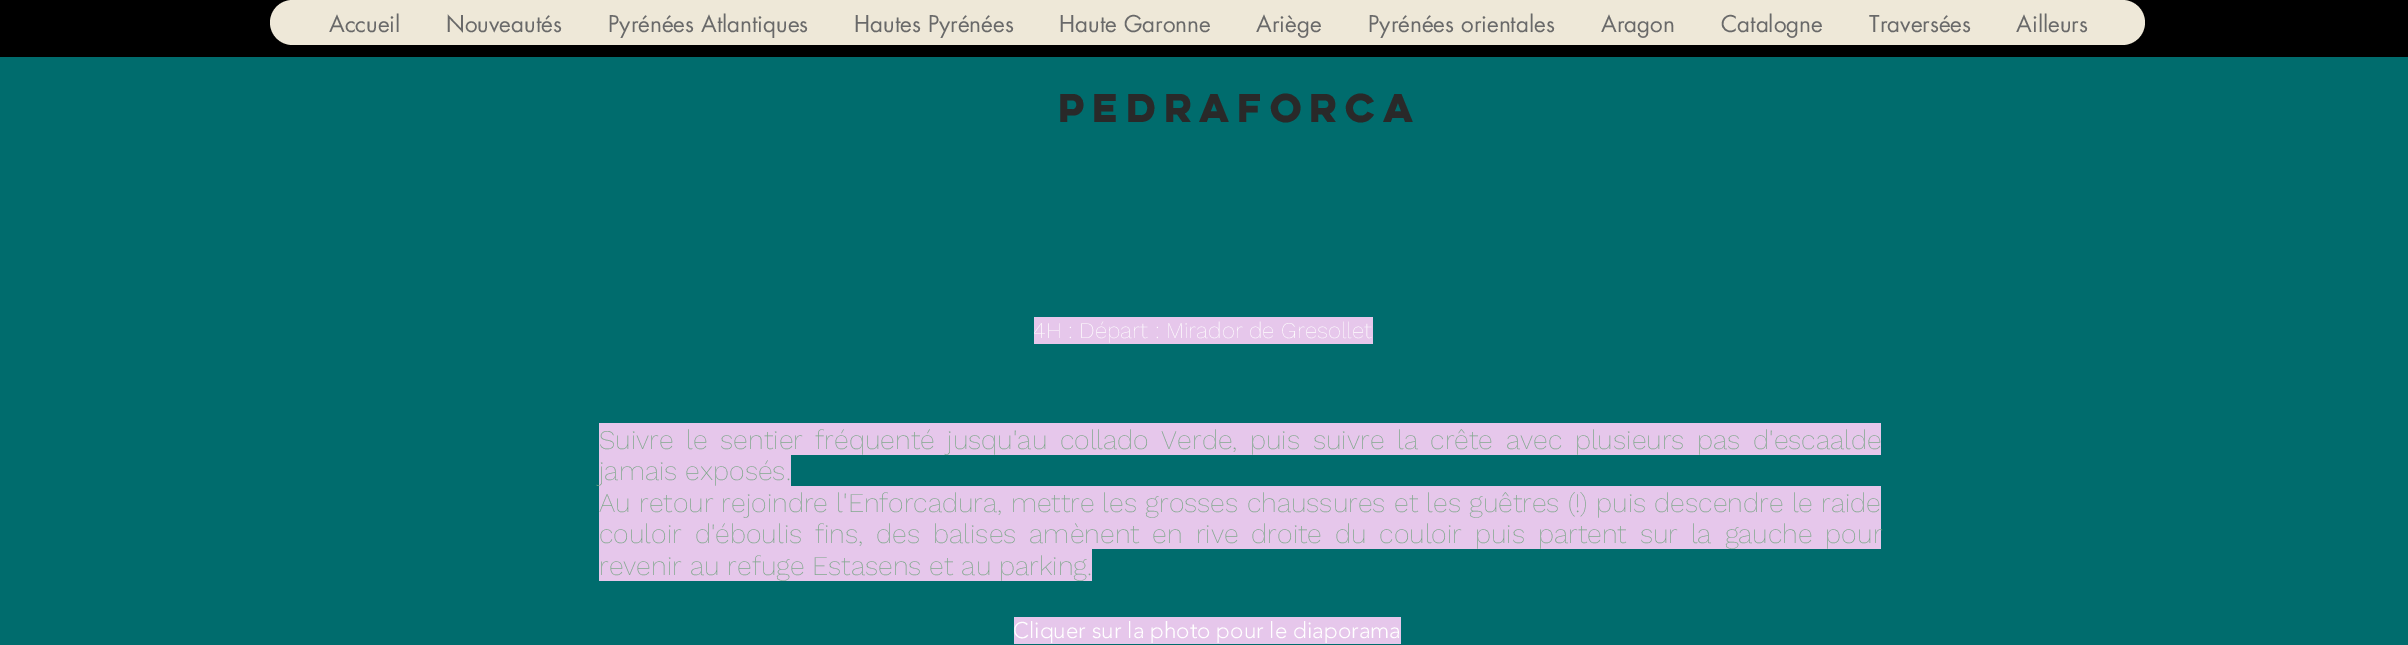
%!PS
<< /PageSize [2408 645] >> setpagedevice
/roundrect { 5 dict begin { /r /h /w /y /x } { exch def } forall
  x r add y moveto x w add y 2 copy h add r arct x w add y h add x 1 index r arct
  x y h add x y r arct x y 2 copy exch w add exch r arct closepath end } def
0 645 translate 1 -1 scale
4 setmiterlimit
0 0.424 0.427 setrgbcolor
0 0 2408 645 rectfill
0 setgray
0 0 2408 57 rectfill
0.933 0.91 0.847 setrgbcolor
270 0 1875 45 22.5 roundrect fill
/futura-Regular [22.5 0 0 -22.5 0 0] selectfont
0.412 setgray
329 32 moveto (Accueil) show
446 32 moveto (Nouveautés) show
608 32 moveto (Pyrénées Atlantiques) show
854 32 moveto (Hautes Pyrénées) show
1059 32 moveto (Haute Garonne) show
1256 32 moveto (Ariège) show
1368 32 moveto (Pyrénées orientales) show
1601 32 moveto (Aragon) show
1721 32 moveto (Catalogne) show
1869 32 moveto (Traversées) show
2016 32 moveto (Ailleurs) show
/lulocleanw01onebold-Bold [36 0 0 -36 0 0] selectfont
0.161 setgray
1058 122 moveto (Pedraforca) show
0.902 0.78 0.922 setrgbcolor
1034 317 339 27 rectfill
/WorkSans-ExtraLight [22.5 0 0 -22.5 0 0] selectfont
1 setgray
1033 338 moveto (4H : Départ : Mirador de Gresollet) show
0.902 0.78 0.922 setrgbcolor
599 423 1282 32 rectfill
/WorkSans-ExtraLight [27 0 0 -27 0 0] selectfont
0.498 0.659 0.545 setrgbcolor
599 449 moveto 4.75 0 32 (Suivre le sentier fréquenté jusqu'au collado Verde, puis suivre la crête avec plusieurs pas d'escaalde) widthshow
0.902 0.78 0.922 setrgbcolor
599 455 192 31 rectfill
0.498 0.659 0.545 setrgbcolor
599 480 moveto (jamais exposés.) show
0.902 0.78 0.922 setrgbcolor
599 486 1282 63 rectfill
0.498 0.659 0.545 setrgbcolor
599 512 moveto 0.4 0 32 (Au retour rejoindre l'Enforcadura, mettre les grosses chaussures et les guêtres \(!\) puis descendre le raide) widthshow
599 543 moveto 5 0 32 (couloir d'éboulis fins, des balises amènent en rive droite du couloir puis partent sur la gauche pour) widthshow
0.902 0.78 0.922 setrgbcolor
599 549 493 32 rectfill
0.498 0.659 0.545 setrgbcolor
599 575 moveto (revenir au refuge Estasens et au parking.) show
0.902 0.78 0.922 setrgbcolor
1014 617 387 27 rectfill
/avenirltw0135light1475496-Light [22.5 0 0 -22.5 0 0] selectfont
1 setgray
1013 638 moveto (Cliquer sur la photo pour le diaporama) show
showpage
